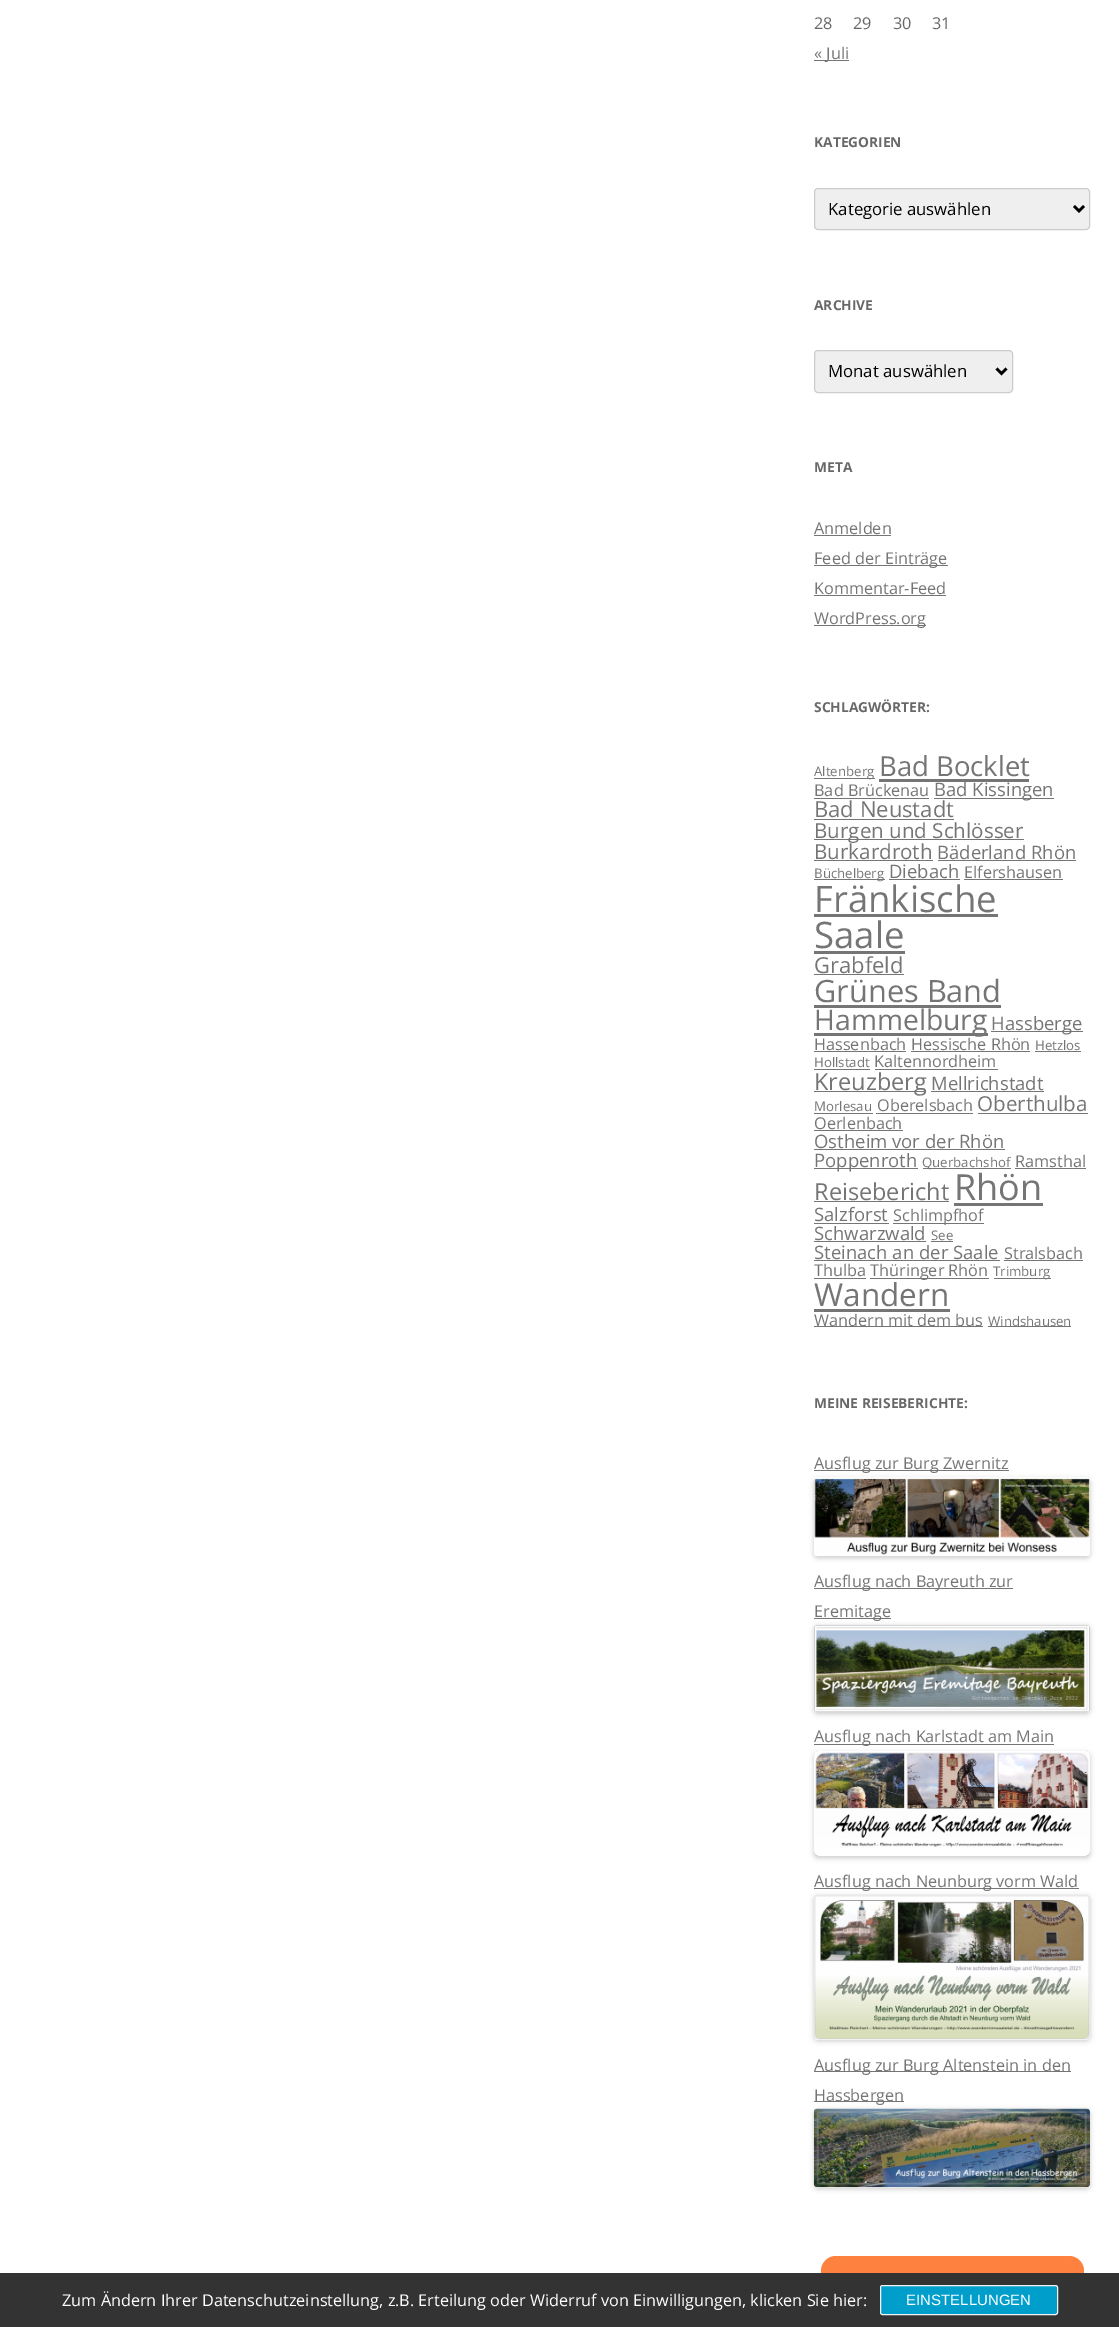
%!PS
<< /PageSize [1119 2327] /PageUsesTransparency true >> setpagedevice
/alpha { dup .setfillconstantalpha .setstrokeconstantalpha } def
/roundrect { 5 dict begin { /r /h /w /y /x } { exch def } forall
  x r add y moveto x w add y 2 copy h add r arct x w add y h add x 1 index r arct
  x y h add x y r arct x y 2 copy exch w add exch r arct closepath end } def
/shadow { 12 dict begin { /a /b /q /h /w /y /x } { exch def } forall gsave /was 0 def
  9 -2 -9 { dup b mul 4 div /e exch def 1 sub .425 mul 2.718 exch exp 1 add a .99 .min exch div /now exch def
    1 1 now sub 1 was sub div sub alpha /was now def
    w h .min e 2 mul add 0 gt { x e sub y e sub w e 2 mul add h e 2 mul add
      q e add b .6 mul add w h .min 2 div e add .min 0 .max roundrect fill } if } for grestore end } def
/picture { 5 dict begin { /h /w /y /x /name } { exch def } forall
  gsave x y translate w h scale
  w h 8 [w 0 0 h 0 0] name (r) file false 3 colorimage grestore end } def
0 .pushpdf14devicefilter
0 2327 translate 1 -1 scale
4 setmiterlimit
1 setgray
0 0 1119 2327 rectfill
/OpenSans-Regular [16.25 0 0 -16.25 0 0] selectfont
0.408 setgray
814 29 moveto (28) show
853 29 moveto (29) show
893 29 moveto (30) show
932 29 moveto (31) show
0.459 setgray
814 60 35 1 rectfill
814 59 moveto (« Juli) show
/OpenSans-Bold [13.75 0 0 -13.75 0 0] selectfont
0.408 setgray
814 147 moveto (KATEGORIEN) show
0.937 setgray
814.5 188.5 275 41 3.5 roundrect gsave fill grestore
0.8 setgray
stroke
0 setgray
2.5 setlinewidth
newpath 1074 206 moveto 1079 211 lineto 1084 206 lineto stroke
/OpenSans-Regular [16.75 0 0 -16.75 0 0] selectfont
828 215 moveto (Kategorie auswählen) show
/OpenSans-Bold [13.75 0 0 -13.75 0 0] selectfont
0.408 setgray
814 310 moveto (ARCHIVE) show
0.937 setgray
814.5 350.5 198 42 3.5 roundrect gsave fill grestore
0.8 setgray
1 setlinewidth
stroke
0 setgray
2.5 setlinewidth
newpath 996.5 368.5 moveto 1001.5 373.5 lineto 1006.5 368.5 lineto stroke
/OpenSans-Regular [16.75 0 0 -16.75 0 0] selectfont
828 377 moveto (Monat auswählen) show
/OpenSans-Bold [13.75 0 0 -13.75 0 0] selectfont
0.408 setgray
814 472 moveto (META) show
/OpenSans-Regular [16.25 0 0 -16.25 0 0] selectfont
0.459 setgray
814 534 moveto (Anmelden) show
814 535 77 1 rectfill
814 565 134 1 rectfill
814 564 moveto (Feed der Einträge) show
814 594 moveto (Kommentar-Feed) show
814 595 132 1 rectfill
814 625 112 1 rectfill
814 624 moveto (WordPress.org) show
/OpenSans-Bold [13.75 0 0 -13.75 0 0] selectfont
0.408 setgray
814 712 moveto (SCHLAGWÖRTER:) show
0.459 setgray
814 778 61 1 rectfill
/OpenSans-Regular [13.25 0 0 -13.25 0 0] selectfont
814 776 moveto (Altenberg) show
/OpenSans-Regular [27.5 0 0 -27.5 0 0] selectfont
879 776 moveto (Bad Bocklet) show
879 779 150 3 rectfill
/OpenSans-Regular [16.25 0 0 -16.25 0 0] selectfont
814 796 moveto (Bad Brückenau) show
814 798 115 1 rectfill
934 798 120 1 rectfill
/OpenSans-Regular [18.5 0 0 -18.5 0 0] selectfont
934 796 moveto (Bad Kissingen) show
/OpenSans-Regular [22 0 0 -22 0 0] selectfont
814 817 moveto (Bad Neustadt) show
814 819 140 1 rectfill
814 839 210 1 rectfill
/OpenSans-Regular [20.6 0 0 -20.6 0 0] selectfont
814 838 moveto (Burgen und Schlösser) show
814 859 moveto (Burkardroth) show
814 860 119 1 rectfill
/OpenSans-Regular [18.5 0 0 -18.5 0 0] selectfont
937 859 moveto (Bäderland Rhön) show
938 860 138 1 rectfill
814 879 71 1 rectfill
/OpenSans-Regular [13.25 0 0 -13.25 0 0] selectfont
814 878 moveto (Büchelberg) show
/OpenSans-Regular [18.5 0 0 -18.5 0 0] selectfont
889 878 moveto (Diebach) show
889 879 71 1 rectfill
/OpenSans-Regular [16.25 0 0 -16.25 0 0] selectfont
964 878 moveto (Elfershausen) show
964 879 99 1 rectfill
/OpenSans-Regular [36.5 0 0 -36.5 0 0] selectfont
814 912 moveto (Fränkische) show
814 914 184 3 rectfill
814 948 moveto (Saale) show
814 951 91 3 rectfill
/OpenSans-Regular [22 0 0 -22 0 0] selectfont
814 973 moveto (Grabfeld) show
814 974 90 1 rectfill
/OpenSans-Regular [30.75 0 0 -30.75 0 0] selectfont
814 1002 moveto (Grünes Band) show
814 1005 187 3 rectfill
814 1033 174 3 rectfill
/OpenSans-Regular [28.25 0 0 -28.25 0 0] selectfont
814 1030 moveto (Hammelburg) show
991 1031 92 1 rectfill
/OpenSans-Regular [18.5 0 0 -18.5 0 0] selectfont
991 1030 moveto (Hassberge) show
/OpenSans-Regular [16.25 0 0 -16.25 0 0] selectfont
814 1050 moveto (Hassenbach) show
814 1051 92 1 rectfill
911 1050 moveto (Hessische Rhön) show
911 1051 119 1 rectfill
/OpenSans-Regular [13.25 0 0 -13.25 0 0] selectfont
1035 1050 moveto (Hetzlos) show
1035 1051 46 1 rectfill
814 1067 moveto (Hollstadt) show
814 1069 56 1 rectfill
/OpenSans-Regular [16.25 0 0 -16.25 0 0] selectfont
874 1067 moveto (Kaltennordheim) show
875 1069 123 1 rectfill
814 1091 112 1 rectfill
/OpenSans-Regular [23.5 0 0 -23.5 0 0] selectfont
814 1090 moveto (Kreuzberg) show
/OpenSans-Regular [18.5 0 0 -18.5 0 0] selectfont
931 1090 moveto (Mellrichstadt) show
931 1091 113 1 rectfill
/OpenSans-Regular [13.25 0 0 -13.25 0 0] selectfont
814 1111 moveto (Morlesau) show
814 1113 59 1 rectfill
/OpenSans-Regular [16.25 0 0 -16.25 0 0] selectfont
877 1111 moveto (Oberelsbach) show
876 1113 97 1 rectfill
/OpenSans-Regular [20.6 0 0 -20.6 0 0] selectfont
977 1111 moveto (Oberthulba) show
978 1113 110 1 rectfill
/OpenSans-Regular [16.25 0 0 -16.25 0 0] selectfont
814 1129 moveto (Oerlenbach) show
814 1130 89 1 rectfill
/OpenSans-Regular [18.5 0 0 -18.5 0 0] selectfont
814 1148 moveto (Ostheim vor der Rhön) show
814 1149 191 1 rectfill
814 1168 104 1 rectfill
814 1167 moveto (Poppenroth) show
923 1168 88 1 rectfill
/OpenSans-Regular [13.25 0 0 -13.25 0 0] selectfont
922 1167 moveto (Querbachshof) show
/OpenSans-Regular [16.25 0 0 -16.25 0 0] selectfont
1015 1167 moveto (Ramsthal) show
1015 1168 71 1 rectfill
/OpenSans-Regular [23.5 0 0 -23.5 0 0] selectfont
814 1200 moveto (Reisebericht) show
814 1201 135 1 rectfill
/OpenSans-Regular [36 0 0 -36 0 0] selectfont
954 1200 moveto (Rhön) show
954 1203 89 3 rectfill
/OpenSans-Regular [18.5 0 0 -18.5 0 0] selectfont
814 1221 moveto (Salzforst) show
814 1223 75 1 rectfill
893 1223 91 1 rectfill
/OpenSans-Regular [16.25 0 0 -16.25 0 0] selectfont
893 1221 moveto (Schlimpfhof) show
/OpenSans-Regular [18.5 0 0 -18.5 0 0] selectfont
814 1240 moveto (Schwarzwald) show
814 1241 112 1 rectfill
/OpenSans-Regular [13.25 0 0 -13.25 0 0] selectfont
931 1240 moveto (See) show
931 1241 22 1 rectfill
/OpenSans-Regular [18.5 0 0 -18.5 0 0] selectfont
814 1259 moveto (Steinach an der Saale) show
814 1260 186 1 rectfill
/OpenSans-Regular [16.25 0 0 -16.25 0 0] selectfont
1004 1259 moveto (Stralsbach) show
1004 1260 79 1 rectfill
814 1276 moveto (Thulba) show
814 1278 52 1 rectfill
870 1278 119 1 rectfill
870 1276 moveto (Thüringer Rhön) show
994 1278 57 1 rectfill
/OpenSans-Regular [13.25 0 0 -13.25 0 0] selectfont
993 1276 moveto (Trimburg) show
/OpenSans-Regular [31.5 0 0 -31.5 0 0] selectfont
814 1306 moveto (Wandern) show
814 1309 136 3 rectfill
814 1326 169 1 rectfill
/OpenSans-Regular [16.25 0 0 -16.25 0 0] selectfont
814 1326 moveto (Wandern mit dem bus) show
988 1326 83 1 rectfill
/OpenSans-Regular [13.25 0 0 -13.25 0 0] selectfont
988 1326 moveto (Windshausen) show
/OpenSans-Bold [13.75 0 0 -13.75 0 0] selectfont
0.408 setgray
814 1408 moveto (MEINE REISEBERICHTE:) show
0.459 setgray
814 1470 195 1 rectfill
/OpenSans-Regular [16.25 0 0 -16.25 0 0] selectfont
814 1469 moveto (Ausflug zur Burg Zwernitz) show
0 setgray
814 1479 276 79 4 2.5 0.2 shadow
(img1.rgb) 814 1477 276 79 picture
0.459 setgray
814 1588 199 1 rectfill
814 1587 moveto (Ausflug nach Bayreuth zur) show
814 1618 77 1 rectfill
814 1617 moveto (Eremitage) show
0 setgray
814 1626 276 88 4 2.5 0.2 shadow
(img2.rgb) 813 1625 277 87 picture
0.459 setgray
814 1744 240 1 rectfill
814 1742 moveto (Ausflug nach Karlstadt am Main) show
gsave
newpath 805 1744 moveto 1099 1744 lineto 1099 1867 lineto 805 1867 lineto closepath 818 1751 moveto 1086 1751 lineto 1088 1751 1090 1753 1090 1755 curveto 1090 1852 lineto 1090 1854 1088 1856 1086 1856 curveto 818 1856 lineto 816 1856 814 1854 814 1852 curveto 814 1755 lineto 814 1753 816 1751 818 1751 curveto closepath eoclip newpath
0 setgray
814 1753 276 105 4 2.5 0.2 shadow
grestore
(img3.rgb) 815 1752 274 96 picture
814 1888 265 1 rectfill
814 1887 moveto (Ausflug nach Neunburg vorm Wald) show
0 setgray
814 1896 276 145 4 2.5 0.2 shadow
(img4.rgb) 814 1895 276 145 picture
0.459 setgray
814 2071 257 1 rectfill
814 2071 moveto (Ausflug zur Burg Altenstein in den) show
814 2101 90 1 rectfill
814 2101 moveto (Hassbergen) show
0 setgray
814 2110 276 79 4 2.5 0.2 shadow
(img5.rgb) 813 2108 277 80 picture
1 0.506 0.247 setrgbcolor
821 2256 263 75 15 roundrect fill
0.2 setgray
0 2273 1119 54 rectfill
1 setgray
62 2306 moveto (Zum Ändern Ihrer Datenschutzeinstellung, z.B. Erteilung oder Widerruf von Einwilligungen, klicken Sie hier:) show
0 0.62 0.796 setrgbcolor
880.5 2285.5 177 29 2 roundrect gsave fill grestore
0.953 setgray
1 setlinewidth
stroke
/LiberationSans-Regular [15 0 0 -15 0 0] selectfont
1 setgray
906 2305 moveto (EINSTELLUNGEN) show
.poppdf14devicefilter showpage
